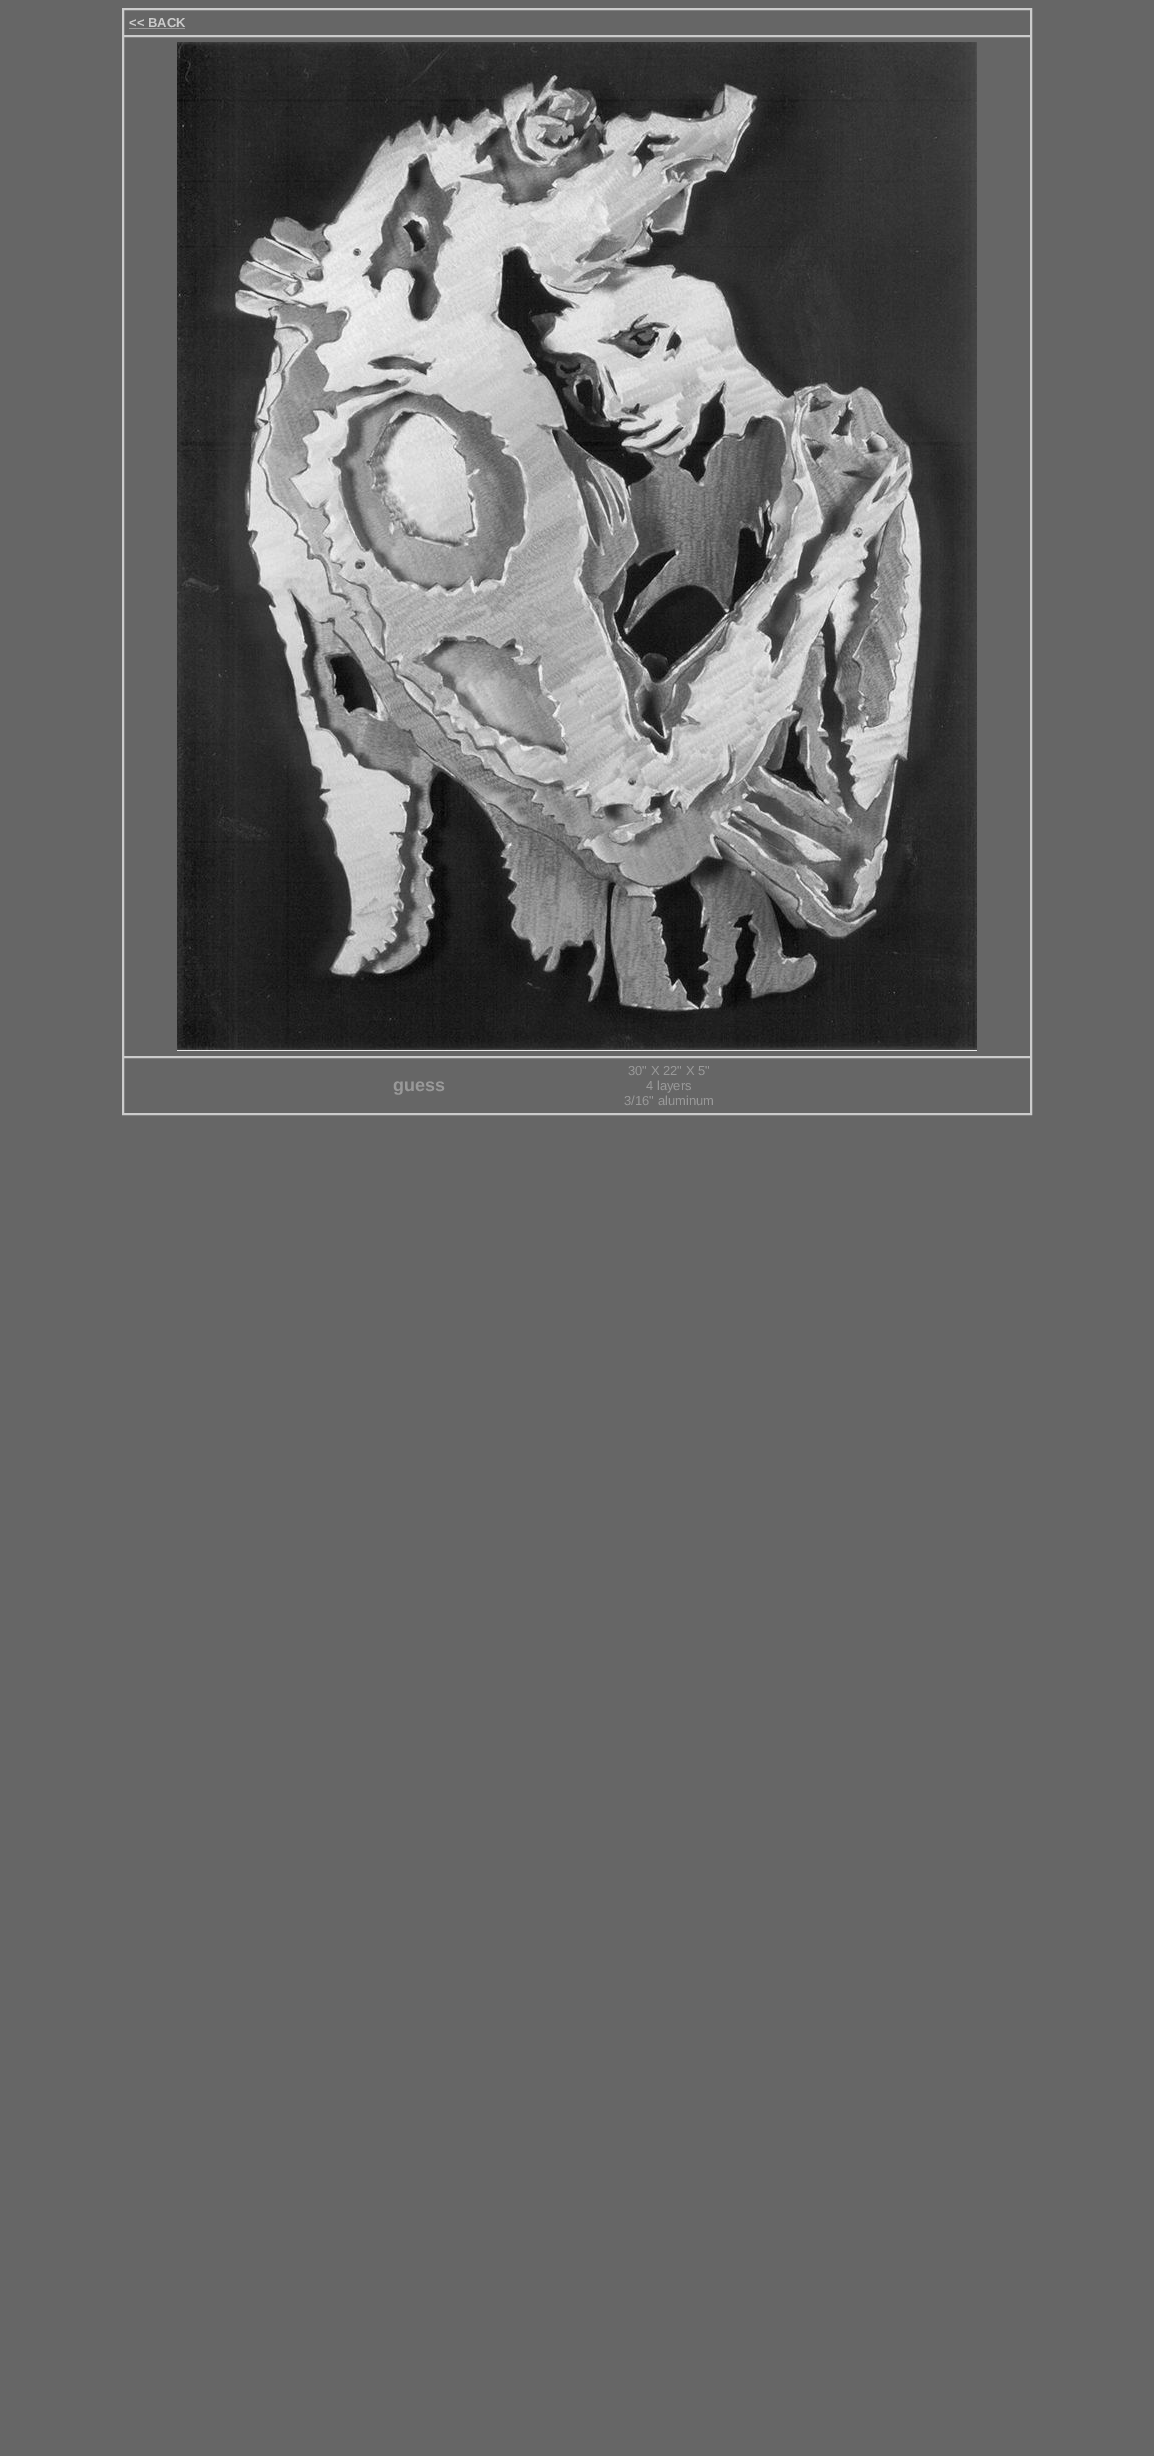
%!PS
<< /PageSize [1154 2456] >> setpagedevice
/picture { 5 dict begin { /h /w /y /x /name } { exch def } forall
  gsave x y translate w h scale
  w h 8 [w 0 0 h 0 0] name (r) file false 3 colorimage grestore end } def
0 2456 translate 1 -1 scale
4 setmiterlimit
0.4 setgray
0 0 1154 2456 rectfill
0.8 setgray
122.5 8.5 909 1106 rectstroke
123.5 9.5 907 26 rectstroke
/LiberationSans-Bold [13 0 0 -13 0 0] selectfont
129 27 moveto (<< BACK) show
0.6 setgray
129 28 56 1 rectfill
0.8 setgray
123.5 36.5 907 1020 rectstroke
(img1.rgb) 177 42 800 1009 picture
123.5 1057.5 907 56 rectstroke
/LiberationSans-Bold [18 0 0 -18 0 0] selectfont
0.6 setgray
393 1091 moveto (guess) show
/LiberationSans-Regular [13 0 0 -13 0 0] selectfont
628 1075 moveto (30" X 22" X 5") show
646 1090 moveto (4 layers) show
624 1105 moveto (3/16" aluminum) show
showpage
